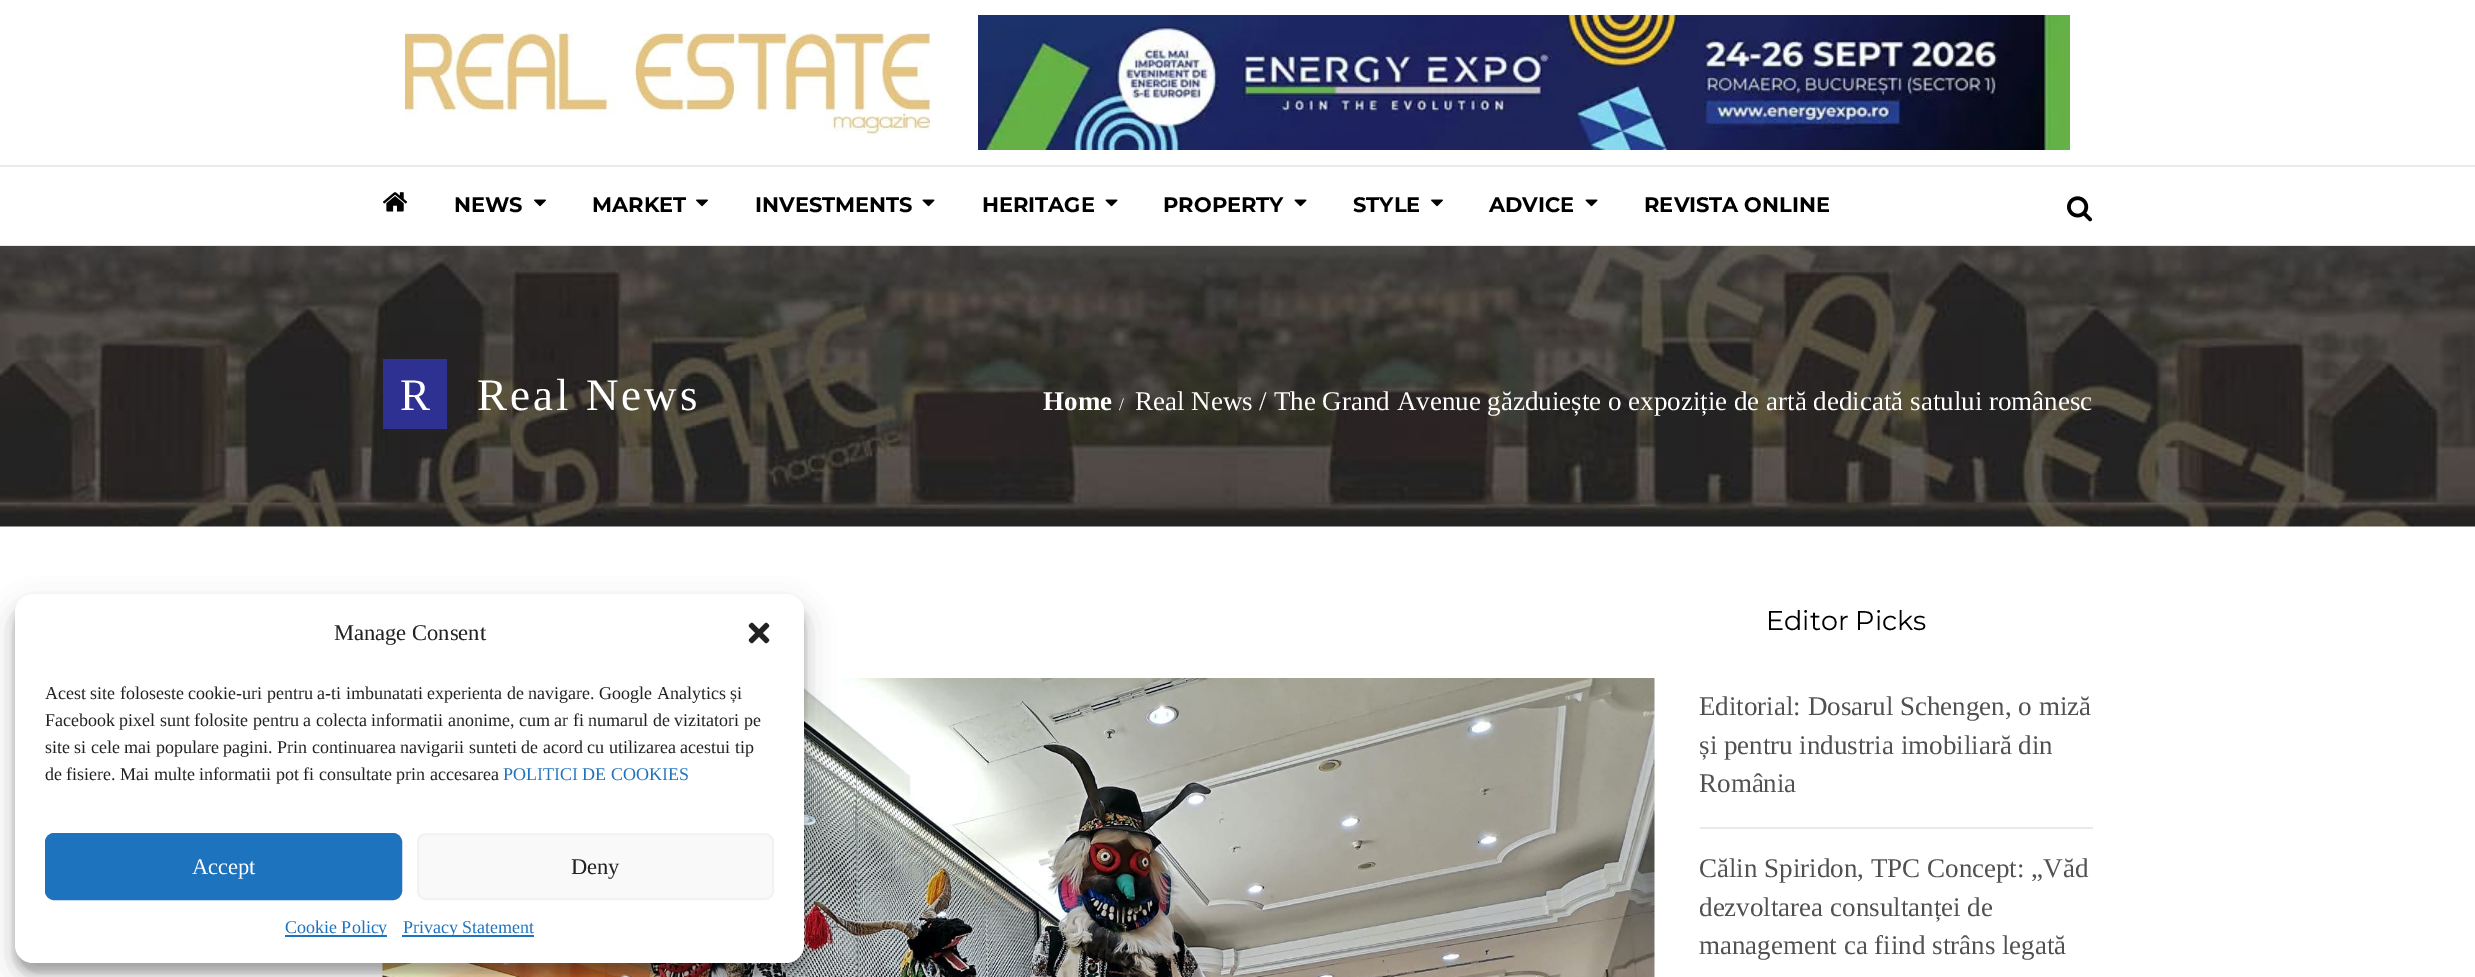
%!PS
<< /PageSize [2475 977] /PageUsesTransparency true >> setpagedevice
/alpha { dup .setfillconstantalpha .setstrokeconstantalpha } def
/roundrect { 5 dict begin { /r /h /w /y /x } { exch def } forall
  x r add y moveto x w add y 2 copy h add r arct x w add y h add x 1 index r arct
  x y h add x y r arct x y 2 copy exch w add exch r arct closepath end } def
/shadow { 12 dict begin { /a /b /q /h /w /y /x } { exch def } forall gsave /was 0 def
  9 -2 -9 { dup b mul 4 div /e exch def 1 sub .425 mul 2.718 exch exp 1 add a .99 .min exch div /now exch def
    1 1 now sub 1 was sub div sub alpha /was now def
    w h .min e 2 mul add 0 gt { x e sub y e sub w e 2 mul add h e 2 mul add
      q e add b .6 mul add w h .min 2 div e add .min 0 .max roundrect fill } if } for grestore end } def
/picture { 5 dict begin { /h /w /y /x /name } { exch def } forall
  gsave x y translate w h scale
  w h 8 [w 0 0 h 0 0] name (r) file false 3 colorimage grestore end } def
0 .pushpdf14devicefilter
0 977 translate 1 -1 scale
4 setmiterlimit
1 setgray
0 0 2475 977 rectfill
0.914 0.918 0.929 setrgbcolor
0 165 2475 2 rectfill
(img1.rgb) 405 33 525 102 picture
(img2.rgb) 978 15 1092 135 picture
0 245 2475 1 rectfill
(img3.rgb) 383 192 25 20 picture
/Montserrat-Bold [21 0 0 -21 0 0] selectfont
0 setgray
454 212 moveto (NEWS) show
(img4.rgb) 534 199 12 8 picture
592 212 moveto (MARKET) show
(img4.rgb) 696 199 12 8 picture
755 212 moveto (INVESTMENTS) show
(img5.rgb) 922 199 13 8 picture
982 212 moveto (HERITAGE) show
(img5.rgb) 1105 199 13 8 picture
1163 212 moveto (PROPERTY) show
(img5.rgb) 1294 199 13 8 picture
1353 212 moveto (STYLE) show
(img4.rgb) 1431 199 12 8 picture
1489 212 moveto (ADVICE) show
(img5.rgb) 1585 199 13 8 picture
1644 212 moveto (REVISTA ONLINE) show
(img6.rgb) 2067 196 26 26 picture
(img7.rgb) 0 246 2475 281 picture
0.18 0.192 0.573 setrgbcolor
383 359 64 70 rectfill
/LiberationSerif-Regular [45 0 0 -45 0 0] selectfont
1 setgray
400 410 moveto (R) show
477 410 moveto 3 0 (Real News) ashow
/LiberationSerif-Bold [27 0 0 -27 0 0] selectfont
1043 410 moveto (Home) show
/LiberationSerif-Regular [18 0 0 -18 0 0] selectfont
1119 410 moveto (/) show
/LiberationSerif-Regular [27 0 0 -27 0 0] selectfont
1135 410 moveto (Real News / The Grand Avenue găzduiește o expoziție de artă dedicată satului românesc) show
(img8.rgb) 382 678 1273 299 picture
/Montserrat-Regular [27 0 0 -27 0 0] selectfont
0 setgray
1766 630 moveto (Editor Picks) show
0.914 0.918 0.929 setrgbcolor
1700 827 393 2 rectfill
/LiberationSerif-Regular [27 0 0 -27 0 0] selectfont
0.318 setgray
1699 715 moveto (Editorial: Dosarul Schengen, o miză) show
1699 754 moveto (și pentru industria imobiliară din) show
1699 792 moveto (România) show
1699 877 moveto (Călin Spiridon, TPC Concept: „Văd) show
1699 916 moveto (dezvoltarea consultanței de) show
1699 954 moveto (management ca fiind strâns legată) show
0 setgray
15 603 789 369 18 4.5 0.23 shadow
15 609 789 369 18 15 0.19 shadow
1 setgray
15 594 789 369 18 roundrect fill
/LiberationSerif-Regular [22.5 0 0 -22.5 0 0] selectfont
0.133 setgray
334 640 moveto (Manage Consent) show
(img9.rgb) 748 622 22 22 picture
/LiberationSerif-Regular [18 0 0 -18 0 0] selectfont
45 699 moveto (Acest site foloseste cookie-uri pentru a-ti imbunatati experienta de navigare. Google Analytics și) show
45 726 moveto (Facebook pixel sunt folosite pentru a colecta informatii anonime, cum ar fi numarul de vizitatori pe) show
45 753 moveto (site si cele mai populare pagini. Prin continuarea navigarii sunteti de acord cu utilizarea acestui tip) show
45 780 moveto (de fisiere. Mai multe informatii pot fi consultate prin accesarea) show
0.118 0.451 0.745 setrgbcolor
503 780 moveto (POLITICI DE COOKIES) show
46 834 355 65 8 roundrect gsave fill grestore
2 setlinewidth
stroke
/LiberationSerif-Regular [22.5 0 0 -22.5 0 0] selectfont
1 setgray
192 874 moveto (Accept) show
0.976 setgray
418 834 355 65 8 roundrect gsave fill grestore
0.949 setgray
stroke
0.133 setgray
571 874 moveto (Deny) show
0.118 0.451 0.745 setrgbcolor
285 935 102 2 rectfill
/LiberationSerif-Regular [18 0 0 -18 0 0] selectfont
285 933 moveto (Cookie Policy) show
402 935 132 2 rectfill
403 933 moveto (Privacy Statement) show
.poppdf14devicefilter showpage
